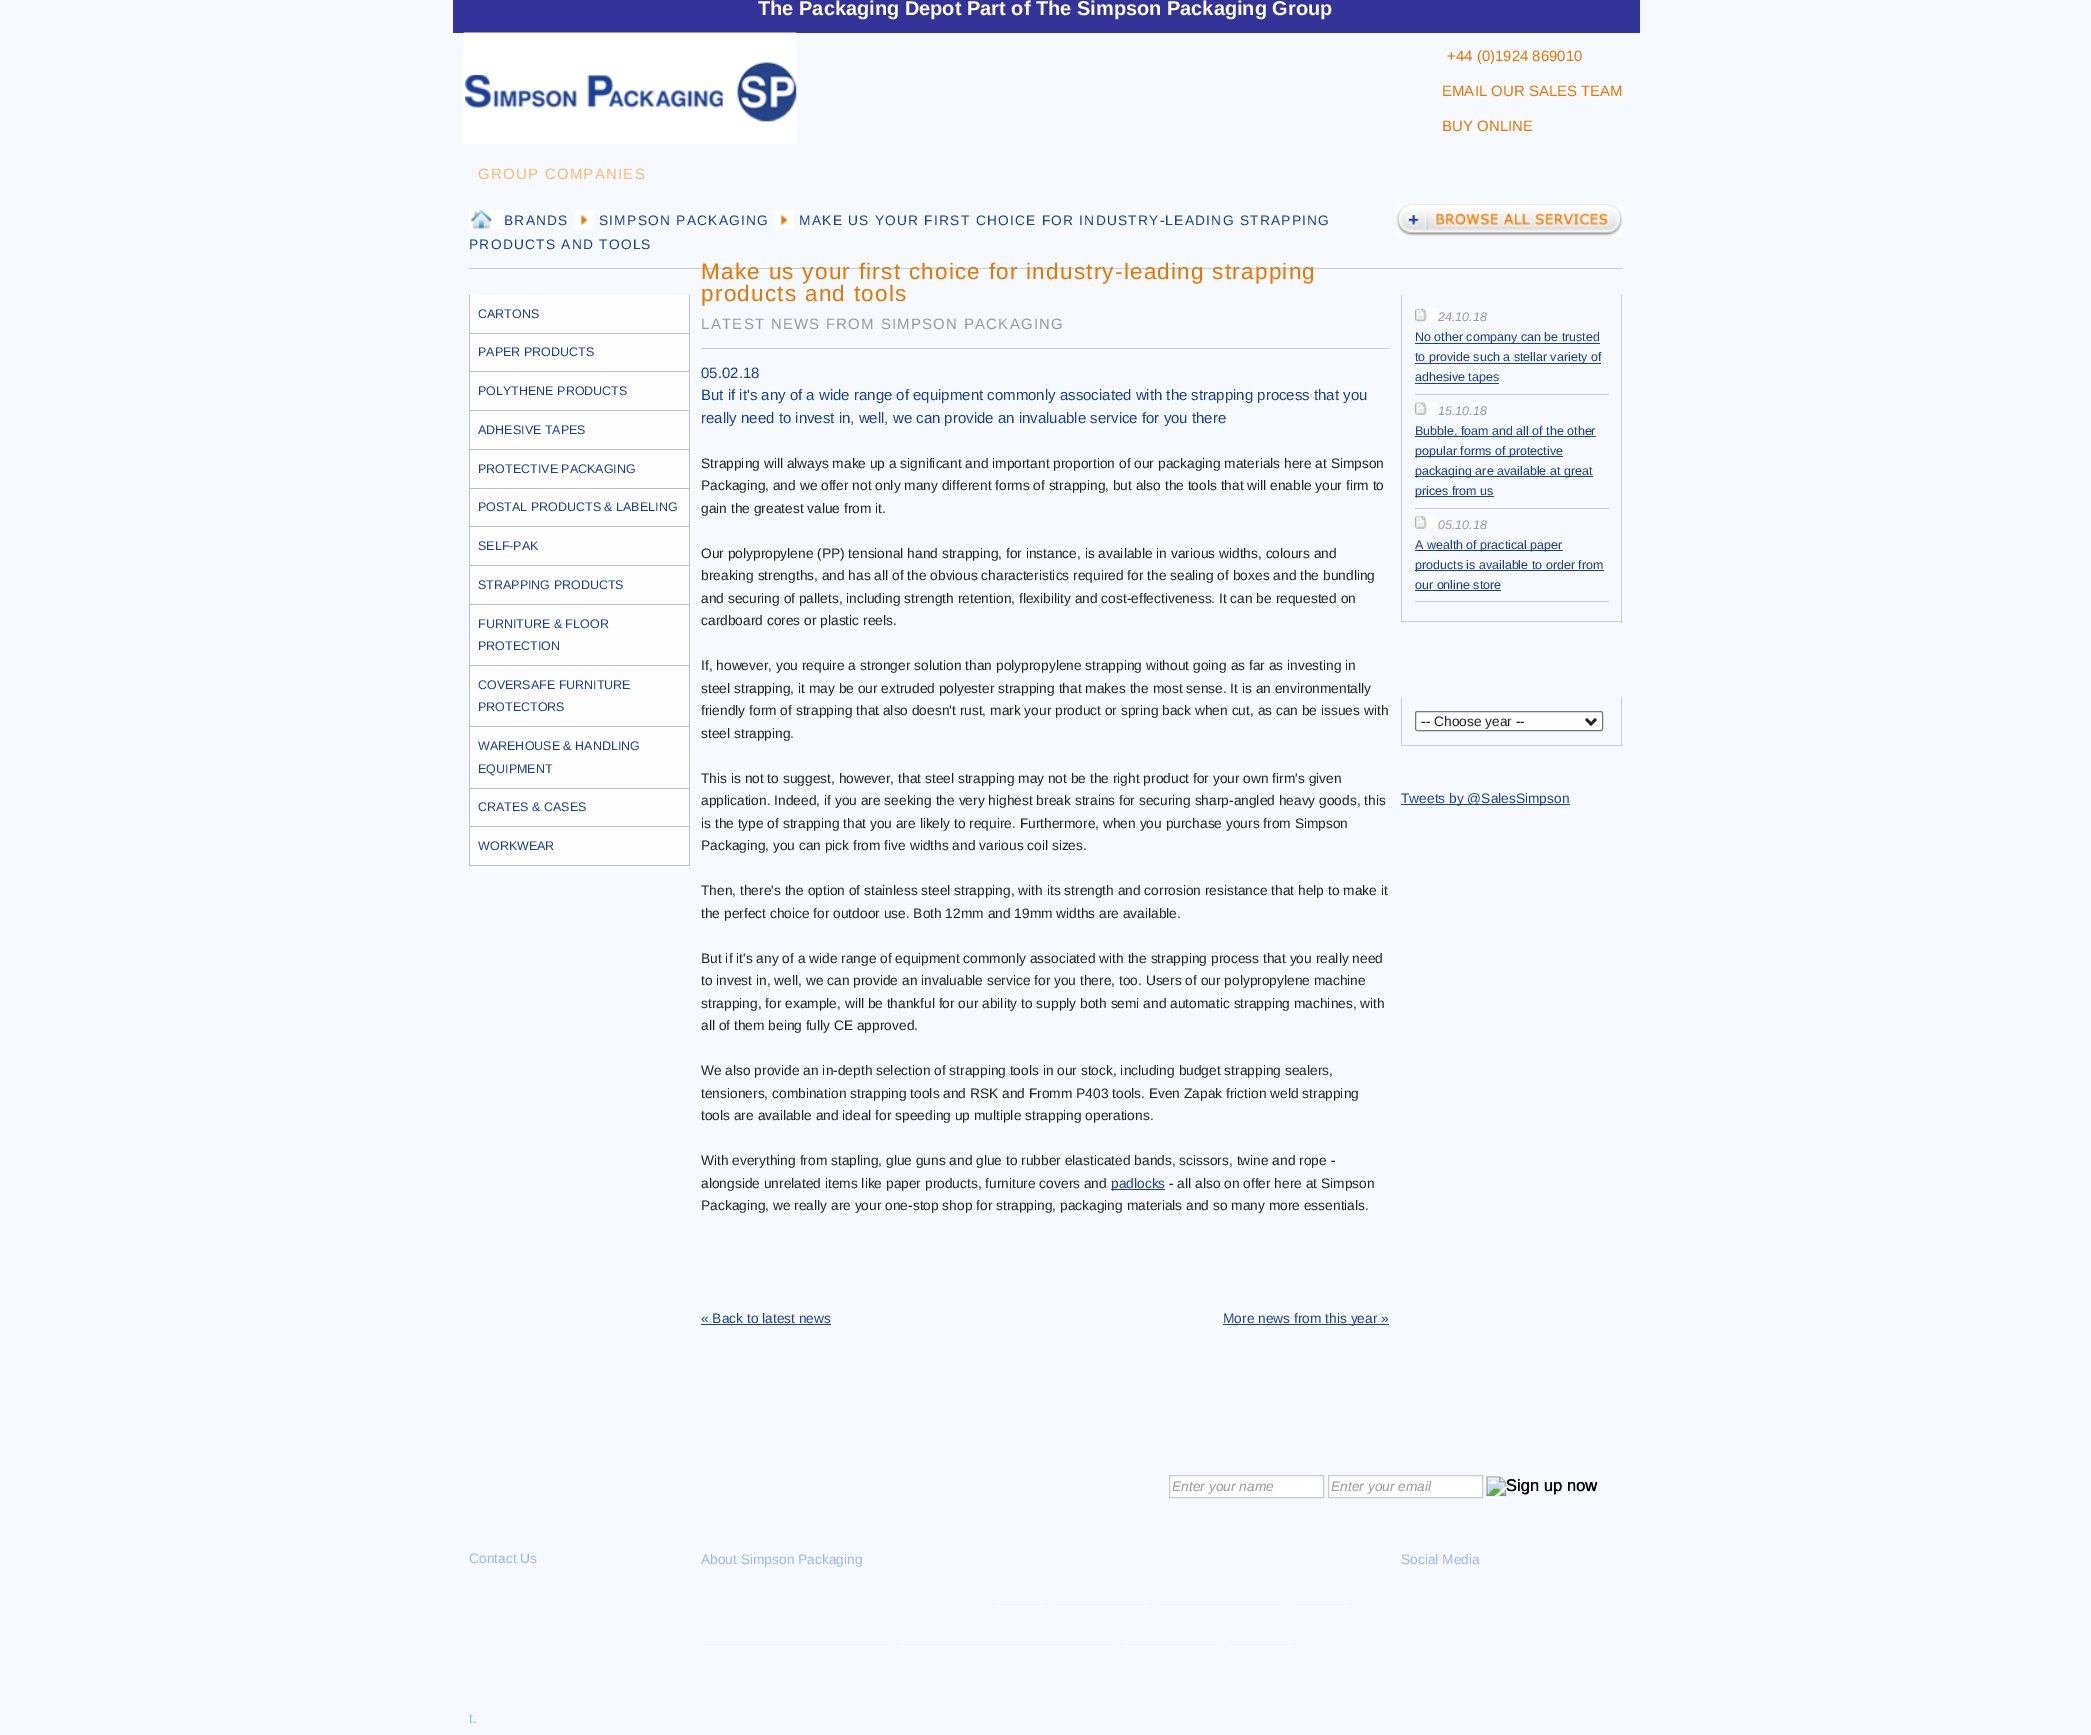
%!PS
<< /PageSize [2091 1735] >> setpagedevice
/roundrect { 5 dict begin { /r /h /w /y /x } { exch def } forall
  x r add y moveto x w add y 2 copy h add r arct x w add y h add x 1 index r arct
  x y h add x y r arct x y 2 copy exch w add exch r arct closepath end } def
/picture { 5 dict begin { /h /w /y /x /name } { exch def } forall
  gsave x y translate w h scale
  w h 8 [w 0 0 h 0 0] name (r) file false 3 colorimage grestore end } def
0 1735 translate 1 -1 scale
4 setmiterlimit
0.965 0.98 1 setrgbcolor
0 0 2091 1735 rectfill
0.2 0.2 0.6 setrgbcolor
453 0 1187 33 rectfill
/LiberationSans-Bold [20 0 0 -20 0 0] selectfont
1 setgray
758 15 moveto (The Packaging Depot Part of The Simpson Packaging Group) show
(img1.rgb) 462 32 335 112 picture
/LiberationSans-Regular [15 0 0 -15 0 0] selectfont
0.922 0.459 0.004 setrgbcolor
1447 61 moveto (+44 \(0\)1924 869010) show
1442 96 moveto (EMAIL OUR SALES TEAM) show
1442 131 moveto (BUY ONLINE) show
1 0.722 0.447 setrgbcolor
478 179 moveto 1.25 0 (GROUP COMPANIES) ashow
0.8 setgray
469 268 1154 1 rectfill
(img2.rgb) 469 210 35 19 picture
/LiberationSans-Regular [13.75 0 0 -13.75 0 0] selectfont
0.11 0.247 0.576 setrgbcolor
504 225 moveto 1.25 0 (BRANDS) ashow
(img3.rgb) 574 210 20 19 picture
599 225 moveto 1.25 0 (SIMPSON PACKAGING) ashow
(img3.rgb) 774 210 20 19 picture
799 225 moveto 1.25 0 (MAKE US YOUR FIRST CHOICE FOR INDUSTRY-LEADING STRAPPING) ashow
(img4.rgb) 1396 203 227 34 picture
469 249 moveto 1.25 0 (PRODUCTS AND TOOLS) ashow
0.996 setgray
470 295 219 38 rectfill
0.753 setgray
689 295 1 571 rectfill
469 333 221 1 rectfill
469 295 1 39 rectfill
/LiberationSans-Regular [12.5 0 0 -12.5 0 0] selectfont
0.11 0.247 0.576 setrgbcolor
478 318 moveto (CARTONS) show
0.996 setgray
470 334 219 76 rectfill
0.753 setgray
469 371 221 1 rectfill
469 334 1 39 rectfill
0.11 0.247 0.576 setrgbcolor
478 356 moveto (PAPER PRODUCTS) show
0.753 setgray
469 410 221 1 rectfill
469 373 1 38 rectfill
0.11 0.247 0.576 setrgbcolor
478 395 moveto (POLYTHENE PRODUCTS) show
0.996 setgray
470 411 219 38 rectfill
0.753 setgray
469 449 221 1 rectfill
469 411 1 39 rectfill
0.11 0.247 0.576 setrgbcolor
478 434 moveto (ADHESIVE TAPES) show
0.996 setgray
470 450 219 38 rectfill
0.753 setgray
469 488 221 1 rectfill
469 450 1 39 rectfill
0.11 0.247 0.576 setrgbcolor
478 473 moveto (PROTECTIVE PACKAGING) show
0.996 setgray
470 489 219 76 rectfill
0.753 setgray
469 526 221 1 rectfill
469 489 1 39 rectfill
0.11 0.247 0.576 setrgbcolor
478 511 moveto (POSTAL PRODUCTS & LABELING) show
0.753 setgray
469 565 221 1 rectfill
469 528 1 38 rectfill
0.11 0.247 0.576 setrgbcolor
478 550 moveto (SELF-PAK) show
0.996 setgray
470 566 219 38 rectfill
0.753 setgray
469 604 221 1 rectfill
469 566 1 39 rectfill
0.11 0.247 0.576 setrgbcolor
478 589 moveto (STRAPPING PRODUCTS) show
0.996 setgray
470 605 219 60 rectfill
0.753 setgray
469 665 221 1 rectfill
469 605 1 61 rectfill
0.11 0.247 0.576 setrgbcolor
478 628 moveto (FURNITURE & FLOOR) show
478 650 moveto (PROTECTION) show
0.996 setgray
470 666 219 122 rectfill
0.753 setgray
469 726 221 1 rectfill
469 666 1 62 rectfill
0.11 0.247 0.576 setrgbcolor
478 689 moveto (COVERSAFE FURNITURE) show
478 711 moveto (PROTECTORS) show
0.753 setgray
469 788 221 1 rectfill
469 728 1 61 rectfill
0.11 0.247 0.576 setrgbcolor
478 750 moveto (WAREHOUSE & HANDLING) show
478 773 moveto (EQUIPMENT) show
0.996 setgray
470 789 219 76 rectfill
0.753 setgray
469 826 221 1 rectfill
469 789 1 39 rectfill
0.11 0.247 0.576 setrgbcolor
478 811 moveto (CRATES & CASES) show
0.753 setgray
469 865 221 1 rectfill
469 828 1 38 rectfill
0.11 0.247 0.576 setrgbcolor
478 850 moveto (WORKWEAR) show
/LiberationSans-Regular [22.5 0 0 -22.5 0 0] selectfont
0.922 0.459 0.004 setrgbcolor
701 279 moveto 1.25 0 (Make us your first choice for industry-leading strapping) ashow
701 301 moveto 1.25 0 (products and tools) ashow
0.8 setgray
701 348 688 1 rectfill
/LiberationSans-Regular [15 0 0 -15 0 0] selectfont
0.6 setgray
701 329 moveto 1.25 0 (LATEST NEWS FROM SIMPSON PACKAGING) ashow
0.11 0.247 0.576 setrgbcolor
701 378 moveto (05.02.18) show
701 400 moveto (But if it's any of a wide range of equipment commonly associated with the strapping process that you) show
701 423 moveto (really need to invest in, well, we can provide an invaluable service for you there) show
/LiberationSans-Regular [13.75 0 0 -13.75 0 0] selectfont
0.133 setgray
701 468 moveto (Strapping will always make up a significant and important proportion of our packaging materials here at Simpson) show
701 490 moveto (Packaging, and we offer not only many different forms of strapping, but also the tools that will enable your firm to) show
701 513 moveto (gain the greatest value from it.) show
701 558 moveto (Our polypropylene \(PP\) tensional hand strapping, for instance, is available in various widths, colours and) show
701 580 moveto (breaking strengths, and has all of the obvious characteristics required for the sealing of boxes and the bundling) show
701 603 moveto (and securing of pallets, including strength retention, flexibility and cost-effectiveness. It can be requested on) show
701 625 moveto (cardboard cores or plastic reels.) show
701 670 moveto (If, however, you require a stronger solution than polypropylene strapping without going as far as investing in) show
701 693 moveto (steel strapping, it may be our extruded polyester strapping that makes the most sense. It is an environmentally) show
701 715 moveto (friendly form of strapping that also doesn't rust, mark your product or spring back when cut, as can be issues with) show
701 738 moveto (steel strapping.) show
701 783 moveto (This is not to suggest, however, that steel strapping may not be the right product for your own firm's given) show
701 805 moveto (application. Indeed, if you are seeking the very highest break strains for securing sharp-angled heavy goods, this) show
701 828 moveto (is the type of strapping that you are likely to require. Furthermore, when you purchase yours from Simpson) show
701 850 moveto (Packaging, you can pick from five widths and various coil sizes.) show
701 895 moveto (Then, there's the option of stainless steel strapping, with its strength and corrosion resistance that help to make it) show
701 918 moveto (the perfect choice for outdoor use. Both 12mm and 19mm widths are available.) show
701 963 moveto (But if it's any of a wide range of equipment commonly associated with the strapping process that you really need) show
701 985 moveto (to invest in, well, we can provide an invaluable service for you there, too. Users of our polypropylene machine) show
701 1008 moveto (strapping, for example, will be thankful for our ability to supply both semi and automatic strapping machines, with) show
701 1030 moveto (all of them being fully CE approved.) show
701 1075 moveto (We also provide an in-depth selection of strapping tools in our stock, including budget strapping sealers,) show
701 1098 moveto (tensioners, combination strapping tools and RSK and Fromm P403 tools. Even Zapak friction weld strapping) show
701 1120 moveto (tools are available and ideal for speeding up multiple strapping operations.) show
701 1165 moveto (With everything from stapling, glue guns and glue to rubber elasticated bands, scissors, twine and rope -) show
701 1188 moveto (alongside unrelated items like paper products, furniture covers and) show
0.11 0.247 0.576 setrgbcolor
1111 1189 54 1 rectfill
1111 1188 moveto (padlocks) show
0.133 setgray
1169 1188 moveto (- all also on offer here at Simpson) show
701 1210 moveto (Packaging, we really are your one-stop shop for strapping, packaging materials and so many more essentials.) show
0.11 0.247 0.576 setrgbcolor
701 1323 moveto (« Back to latest news) show
701 1324 130 1 rectfill
1223 1324 166 1 rectfill
1223 1323 moveto (More news from this year ») show
0.8 setgray
1621 295 1 328 rectfill
1401 621 222 1 rectfill
1401 295 1 328 rectfill
(img5.rgb) 1415 308 23 14 picture
/LiberationSans-Italic [12.5 0 0 -12.5 0 0] selectfont
0.6 setgray
1438 321 moveto (24.10.18) show
0.8 setgray
1415 394 194 1 rectfill
0.11 0.247 0.576 setrgbcolor
1415 343 185 1 rectfill
/LiberationSans-Regular [12.5 0 0 -12.5 0 0] selectfont
1415 341 moveto (No other company can be trusted) show
1415 363 186 1 rectfill
1415 361 moveto (to provide such a stellar variety of) show
1415 383 84 1 rectfill
1415 381 moveto (adhesive tapes) show
(img6.rgb) 1415 402 23 13 picture
/LiberationSans-Italic [12.5 0 0 -12.5 0 0] selectfont
0.6 setgray
1438 415 moveto (15.10.18) show
0.8 setgray
1415 508 194 1 rectfill
0.11 0.247 0.576 setrgbcolor
1415 436 181 1 rectfill
/LiberationSans-Regular [12.5 0 0 -12.5 0 0] selectfont
1415 435 moveto (Bubble, foam and all of the other) show
1415 456 148 1 rectfill
1415 455 moveto (popular forms of protective) show
1415 476 178 1 rectfill
1415 475 moveto (packaging are available at great) show
1415 496 79 1 rectfill
1415 495 moveto (prices from us) show
(img7.rgb) 1415 516 23 13 picture
/LiberationSans-Italic [12.5 0 0 -12.5 0 0] selectfont
0.6 setgray
1438 529 moveto (05.10.18) show
0.8 setgray
1415 601 194 1 rectfill
0.11 0.247 0.576 setrgbcolor
1415 550 148 1 rectfill
/LiberationSans-Regular [12.5 0 0 -12.5 0 0] selectfont
1415 549 moveto (A wealth of practical paper) show
1415 570 189 1 rectfill
1415 569 moveto (products is available to order from) show
1415 589 moveto (our online store) show
1415 590 86 1 rectfill
0.8 setgray
1621 698 1 48 rectfill
1401 745 222 1 rectfill
1401 698 1 48 rectfill
1 setgray
1415.5 711.5 187 19 2 roundrect gsave fill grestore
0.463 setgray
stroke
0.133 setgray
2.5 setlinewidth
newpath 1586 719 moveto 1591 724 lineto 1596 719 lineto stroke
/LiberationSans-Regular [13.75 0 0 -13.75 0 0] selectfont
1421 726 moveto (-- Choose year --) show
0.11 0.247 0.576 setrgbcolor
1401 804 169 1 rectfill
1401 803 moveto (Tweets by @SalesSimpson) show
1 setgray
newpath 1169.5 1475.5 moveto 1323.5 1475.5 lineto 1323.5 1497.5 lineto 1169.5 1497.5 lineto closepath gsave fill grestore
0.8 setgray
1 setlinewidth
stroke
gsave
1173 1479 147 15 rectclip
/LiberationSans-Italic [13.75 0 0 -13.75 0 0] selectfont
0.6 setgray
1172 1491 moveto (Enter your name) show
grestore
1 setgray
newpath 1328.5 1475.5 moveto 1482.5 1475.5 lineto 1482.5 1497.5 lineto 1328.5 1497.5 lineto closepath gsave fill grestore
0.8 setgray
stroke
/LiberationSans-Italic [13.75 0 0 -13.75 0 0] selectfont
0.6 setgray
1331 1491 moveto (Enter your email) show
(img8.rgb) 1486 1476 112 21 picture
/LiberationSans-Regular [16.5 0 0 -16.5 0 0] selectfont
0 setgray
1506 1491 moveto (Sign up now) show
/LiberationSans-Regular [13.75 0 0 -13.75 0 0] selectfont
0.604 0.714 0.976 setrgbcolor
469 1563 moveto (Contact Us) show
469 1723 moveto (t.) show
701 1564 moveto (About Simpson Packaging) show
1 setgray
996 1606 49 1 rectfill
1056 1606 94 1 rectfill
1161 1606 120 1 rectfill
1293 1606 56 1 rectfill
701 1626 39 1 rectfill
751 1626 129 1 rectfill
891 1626 165 1 rectfill
1068 1626 117 1 rectfill
1196 1626 169 1 rectfill
701 1646 188 1 rectfill
900 1646 211 1 rectfill
1123 1646 96 1 rectfill
1230 1646 63 1 rectfill
701 1666 53 1 rectfill
761 1666 124 1 rectfill
905 1666 71 1 rectfill
0.604 0.714 0.976 setrgbcolor
1401 1564 moveto (Social Media) show
showpage
